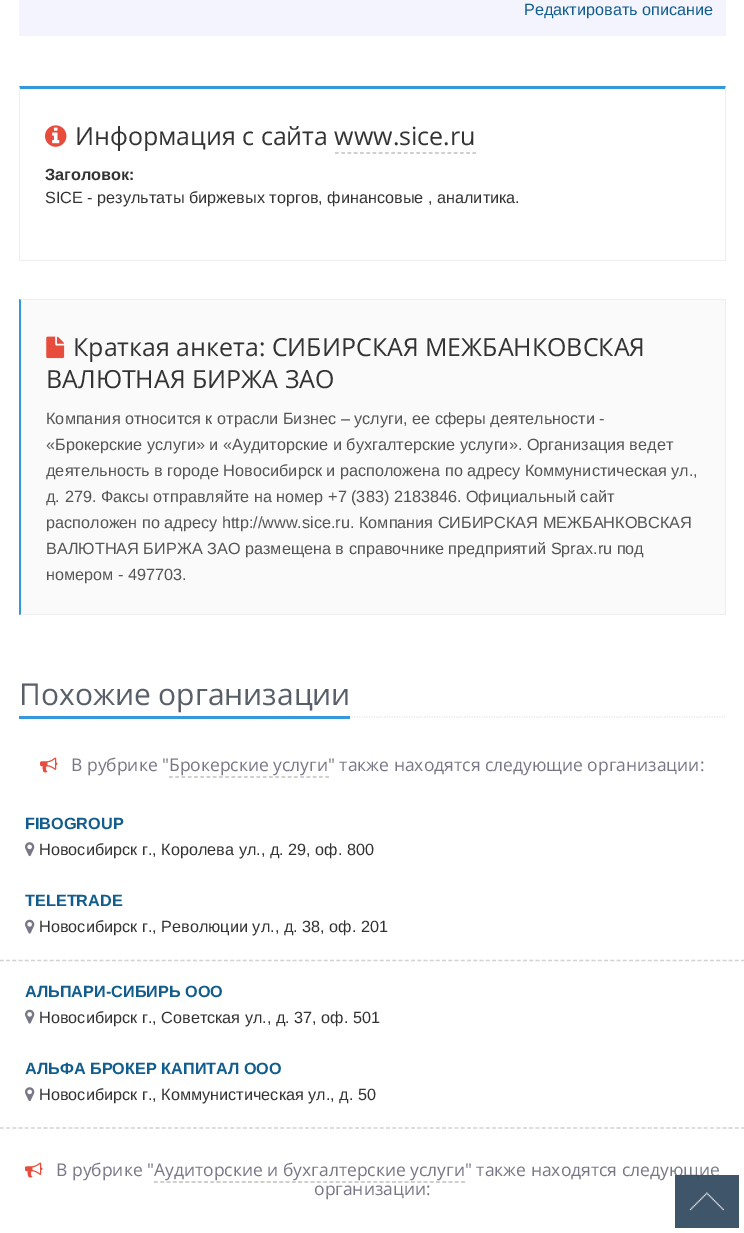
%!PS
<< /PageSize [744 1233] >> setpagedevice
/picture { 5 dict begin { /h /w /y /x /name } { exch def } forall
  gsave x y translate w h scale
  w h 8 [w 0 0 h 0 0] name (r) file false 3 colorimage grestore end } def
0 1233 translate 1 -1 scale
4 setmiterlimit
1 setgray
0 0 744 1233 rectfill
0.957 0.957 1 setrgbcolor
19 0 707 36 rectfill
/LiberationSans-Regular [16.25 0 0 -16.25 0 0] selectfont
0.067 0.365 0.557 setrgbcolor
524 15 moveto (Редактировать описание) show
0.204 0.596 0.859 setrgbcolor
newpath 19 86 moveto 726 86 lineto 725 89 lineto 20 89 lineto closepath fill
0.933 setgray
newpath 726 86 moveto 726 261 lineto 725 260 lineto 725 89 lineto closepath fill
19 260 707 1 rectfill
newpath 19 261 moveto 19 86 lineto 20 89 lineto 20 260 lineto closepath fill
(img1.rgb) 45 125 22 22 picture
/OpenSans-Regular [25 0 0 -25 0 0] selectfont
0.2 setgray
75 145 moveto (Информация с сайта www.sice.ru) show
0.753 setgray
1.2 setlinewidth
[3.75 2.5] 0 setdash
newpath 335 153 moveto 476 153 lineto stroke
/LiberationSans-Bold [16.25 0 0 -16.25 0 0] selectfont
0.2 setgray
45 180 moveto (Заголовок:) show
/LiberationSans-Regular [16.25 0 0 -16.25 0 0] selectfont
45 203 moveto (SICE - результаты биржевых торгов, финансовые , аналитика.) show
0.98 setgray
21 300 704 314 rectfill
0.933 setgray
newpath 19 299 moveto 726 299 lineto 725 300 lineto 21 300 lineto closepath fill
725 299 1 316 rectfill
newpath 726 615 moveto 19 615 lineto 21 614 lineto 725 614 lineto closepath fill
0.204 0.596 0.859 setrgbcolor
newpath 19 615 moveto 19 299 lineto 21 300 lineto 21 614 lineto closepath fill
(img2.rgb) 46 336 19 23 picture
/OpenSans-Regular [25 0 0 -25 0 0] selectfont
0.2 setgray
73 356 moveto (Краткая анкета: СИБИРСКАЯ МЕЖБАНКОВСКАЯ) show
46 388 moveto (ВАЛЮТНАЯ БИРЖА ЗАО) show
/LiberationSans-Regular [16.25 0 0 -16.25 0 0] selectfont
0.333 setgray
46 424 moveto (Компания относится к отрасли Бизнес – услуги, ее сферы деятельности -) show
46 450 moveto («Брокерские услуги» и «Аудиторские и бухгалтерские услуги». Организация ведет) show
46 476 moveto (деятельность в городе Новосибирск и расположена по адресу Коммунистическая ул.,) show
46 502 moveto (д. 279. Факсы отправляйте на номер +7 \(383\) 2183846. Официальный сайт) show
46 528 moveto (расположен по адресу http://www.sice.ru. Компания СИБИРСКАЯ МЕЖБАНКОВСКАЯ) show
46 554 moveto (ВАЛЮТНАЯ БИРЖА ЗАО размещена в справочнике предприятий Sprax.ru под) show
46 580 moveto (номером - 497703.) show
0.894 0.914 0.941 setrgbcolor
[1.25 1.25] 0 setdash
newpath 19 717 moveto 726 717 lineto stroke
0.204 0.596 0.859 setrgbcolor
19 716 331 3 rectfill
/OpenSans-Regular [30 0 0 -30 0 0] selectfont
0.345 0.373 0.412 setrgbcolor
19 705 moveto (Похожие организации) show
(img3.rgb) 40 757 18 16 picture
/OpenSans-Regular [17.5 0 0 -17.5 0 0] selectfont
0.467 0.467 0.533 setrgbcolor
71 771 moveto (В рубрике "Брокерские услуги" также находятся следующие организации:) show
0.753 setgray
[3.75 2.5] 0 setdash
newpath 169 777 moveto 329 777 lineto stroke
0.827 setgray
[3.75 2.48] 0 setdash
newpath 0 960.5 moveto 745 960.5 lineto stroke
/LiberationSans-Bold [16.25 0 0 -16.25 0 0] selectfont
0.067 0.365 0.557 setrgbcolor
25 829 moveto (FIBOGROUP) show
(img4.rgb) 25 842 10 15 picture
/LiberationSans-Regular [16.25 0 0 -16.25 0 0] selectfont
0.2 setgray
39 855 moveto (Новосибирск г., Королева ул., д. 29, оф. 800) show
/LiberationSans-Bold [16.25 0 0 -16.25 0 0] selectfont
0.067 0.365 0.557 setrgbcolor
25 906 moveto (TELETRADE) show
(img5.rgb) 25 919 10 15 picture
/LiberationSans-Regular [16.25 0 0 -16.25 0 0] selectfont
0.2 setgray
39 932 moveto (Новосибирск г., Революции ул., д. 38, оф. 201) show
0.827 setgray
newpath 0 1128 moveto 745 1128 lineto stroke
/LiberationSans-Bold [16.25 0 0 -16.25 0 0] selectfont
0.067 0.365 0.557 setrgbcolor
25 997 moveto (АЛЬПАРИ-СИБИРЬ ООО) show
(img5.rgb) 25 1009 10 15 picture
/LiberationSans-Regular [16.25 0 0 -16.25 0 0] selectfont
0.2 setgray
39 1023 moveto (Новосибирск г., Советская ул., д. 37, оф. 501) show
/LiberationSans-Bold [16.25 0 0 -16.25 0 0] selectfont
0.067 0.365 0.557 setrgbcolor
25 1074 moveto (АЛЬФА БРОКЕР КАПИТАЛ ООО) show
(img4.rgb) 25 1087 10 15 picture
/LiberationSans-Regular [16.25 0 0 -16.25 0 0] selectfont
0.2 setgray
39 1100 moveto (Новосибирск г., Коммунистическая ул., д. 50) show
(img3.rgb) 25 1162 18 16 picture
/OpenSans-Regular [17.5 0 0 -17.5 0 0] selectfont
0.467 0.467 0.533 setrgbcolor
56 1176 moveto (В рубрике "Аудиторские и бухгалтерские услуги" также находятся следующие) show
0.753 setgray
[3.75 2.52] 0 setdash
newpath 154 1182 moveto 465 1182 lineto stroke
0.467 0.467 0.533 setrgbcolor
314 1195 moveto (организации:) show
(img6.rgb) 675 1175 64 53 picture
showpage
